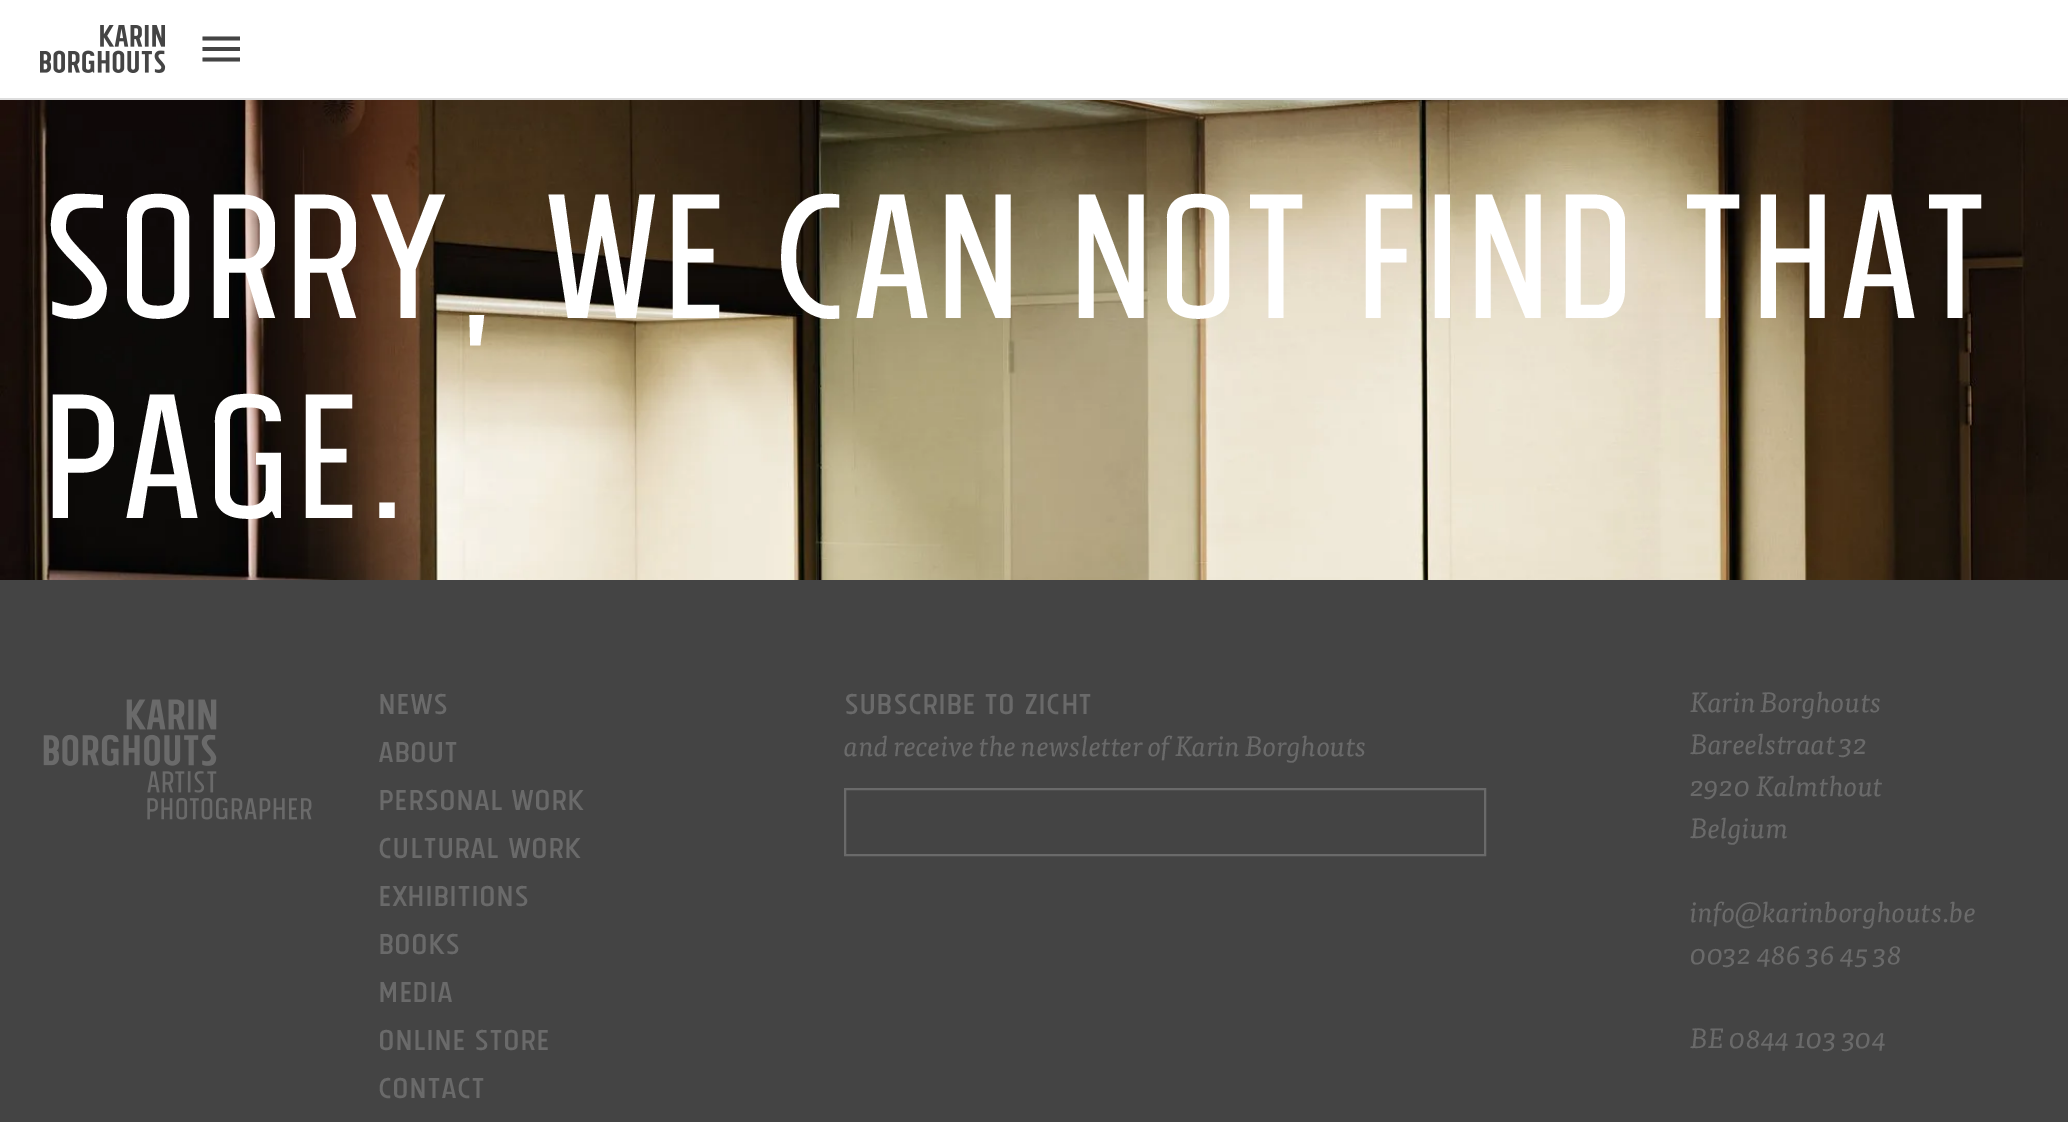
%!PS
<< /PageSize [2068 1122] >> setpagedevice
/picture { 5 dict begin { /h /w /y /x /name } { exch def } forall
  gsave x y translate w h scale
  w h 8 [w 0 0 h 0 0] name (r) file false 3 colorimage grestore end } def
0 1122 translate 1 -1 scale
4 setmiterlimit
1 setgray
0 0 2068 1122 rectfill
(img1.rgb) 0 100 2068 480 picture
0.867 setgray
0 98 2068 2 rectfill
(img2.rgb) 40 25 126 48 picture
0.267 setgray
newpath 202.5 57.5 moveto 240 57.5 lineto 240 61.5 lineto 202.5 61.5 lineto closepath 202.5 47 moveto 240 47 lineto 240 51 lineto 202.5 51 lineto closepath 202.5 36.5 moveto 240 36.5 lineto 240 40.5 lineto 202.5 40.5 lineto closepath fill
/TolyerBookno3-Regular [200 0 0 -200 0 0] selectfont
1 setgray
40 318 moveto (Sorry, we can not find that) show
40 518 moveto (page.) show
0.267 setgray
0 580 2068 542 rectfill
(img3.rgb) 43 699 269 121 picture
/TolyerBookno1-Regular [40 0 0 -40 0 0] selectfont
0.416 setgray
378 714 moveto (News) show
378 762 moveto (About) show
378 810 moveto (Personal work) show
378 858 moveto (Cultural work) show
378 906 moveto (Exhibitions) show
378 954 moveto (Books) show
378 1002 moveto (Media) show
378 1050 moveto (Online Store) show
378 1098 moveto (Contact) show
844 714 moveto (Subscribe to ZICHT) show
/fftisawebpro-Italic [28 0 0 -28 0 0] selectfont
844 756 moveto -0.5 0 32 (and receive the newsletter of Karin Borghouts) widthshow
2 setlinewidth
845 789 640 66 rectstroke
1690 712 moveto -1 0 32 (Karin Borghouts) widthshow
1690 754 moveto -2 0 32 (Bareelstraat 32) widthshow
1690 796 moveto (2920 Kalmthout) show
1690 838 moveto (Belgium) show
1690 922 moveto (info@karinborghouts.be) show
1690 964 moveto (0032 486 36 45 38) show
1690 1048 moveto (BE 0844 103 304) show
showpage
